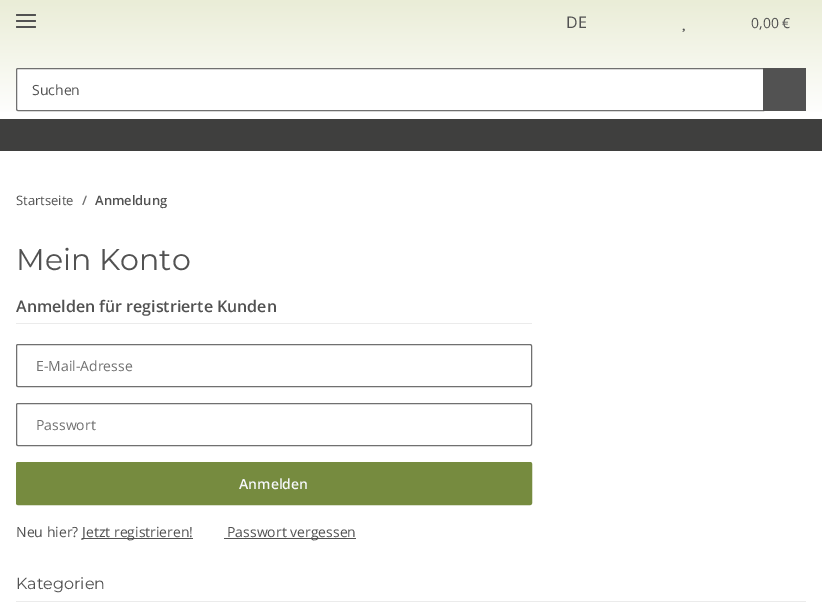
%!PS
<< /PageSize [822 609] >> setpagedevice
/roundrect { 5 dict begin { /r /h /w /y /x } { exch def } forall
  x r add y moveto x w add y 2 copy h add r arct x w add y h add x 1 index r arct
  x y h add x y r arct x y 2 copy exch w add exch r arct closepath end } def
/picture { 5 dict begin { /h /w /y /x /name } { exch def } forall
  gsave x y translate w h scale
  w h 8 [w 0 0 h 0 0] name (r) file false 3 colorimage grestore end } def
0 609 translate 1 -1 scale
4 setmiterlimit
1 setgray
0 0 822 609 rectfill
gsave newpath 0 0 moveto 822 0 lineto 822 112 lineto 0 112 lineto closepath clip newpath
<< /ShadingType 2 /ColorSpace /DeviceRGB /Coords [411 0 411 119] /Extend [true true] /Function << /FunctionType 2 /Domain [0 1] /C0 [0.918 0.929 0.843] /C1 [1 1 1] /N 1 >> >> shfill grestore
0.322 setgray
16 20 20 2 1 roundrect fill
16 14 20 2 1 roundrect fill
16 26 20 2 1 roundrect fill
/OpenSans-Regular [16 0 0 -16 0 0] selectfont
566 28 moveto (DE) show
(img1.rgb) 682 28 3 4 picture
/OpenSans-Regular [14 0 0 -14 0 0] selectfont
751 28 moveto (0,00 €) show
1 setgray
newpath 18 68.5 moveto 763.5 68.5 lineto 763.5 110.5 lineto 18 110.5 lineto 17 110.5 16.5 110 16.5 109 curveto 16.5 70 lineto 16.5 69 17 68.5 18 68.5 curveto closepath gsave fill grestore
0.439 setgray
stroke
0.322 setgray
32 95 moveto (Suchen) show
763 68 43 43 rectfill
0.247 0.247 0.243 setrgbcolor
0 119 822 32 rectfill
/OpenSans-Regular [13 0 0 -13 0 0] selectfont
0.322 setgray
16 205 moveto (Startseite) show
/OpenSans-SemiBold [13 0 0 -13 0 0] selectfont
0.439 setgray
82 205 moveto (/) show
0.322 setgray
95 205 moveto (Anmeldung) show
/Montserrat-Regular [30 0 0 -30 0 0] selectfont
16 270 moveto (Mein Konto) show
0.922 setgray
16 323 516 1 rectfill
/OpenSans-SemiBold [16 0 0 -16 0 0] selectfont
0.322 setgray
16 312 moveto (Anmelden für registrierte Kunden) show
0.439 setgray
16.5 344.5 515 42 1.5 roundrect stroke
/OpenSans-Regular [14 0 0 -14 0 0] selectfont
36 371 moveto (E-Mail-Adresse) show
16.5 403.5 515 42 1.5 roundrect stroke
36 430 moveto (Passwort) show
0.463 0.545 0.247 setrgbcolor
16.5 462.5 515 42 1.5 roundrect gsave fill grestore
stroke
/OpenSans-SemiBold [14 0 0 -14 0 0] selectfont
0.961 0.969 0.98 setrgbcolor
239 489 moveto (Anmelden) show
/OpenSans-Regular [14 0 0 -14 0 0] selectfont
0.322 setgray
16 537 moveto (Neu hier?) show
82 538 111 1 rectfill
82 537 moveto (Jetzt registrieren!) show
224 538 132 1 rectfill
227 537 moveto (Passwort vergessen) show
0.922 setgray
16 601 790 1 rectfill
/Montserrat-Regular [16 0 0 -16 0 0] selectfont
0.322 setgray
16 589 moveto (Kategorien) show
showpage
